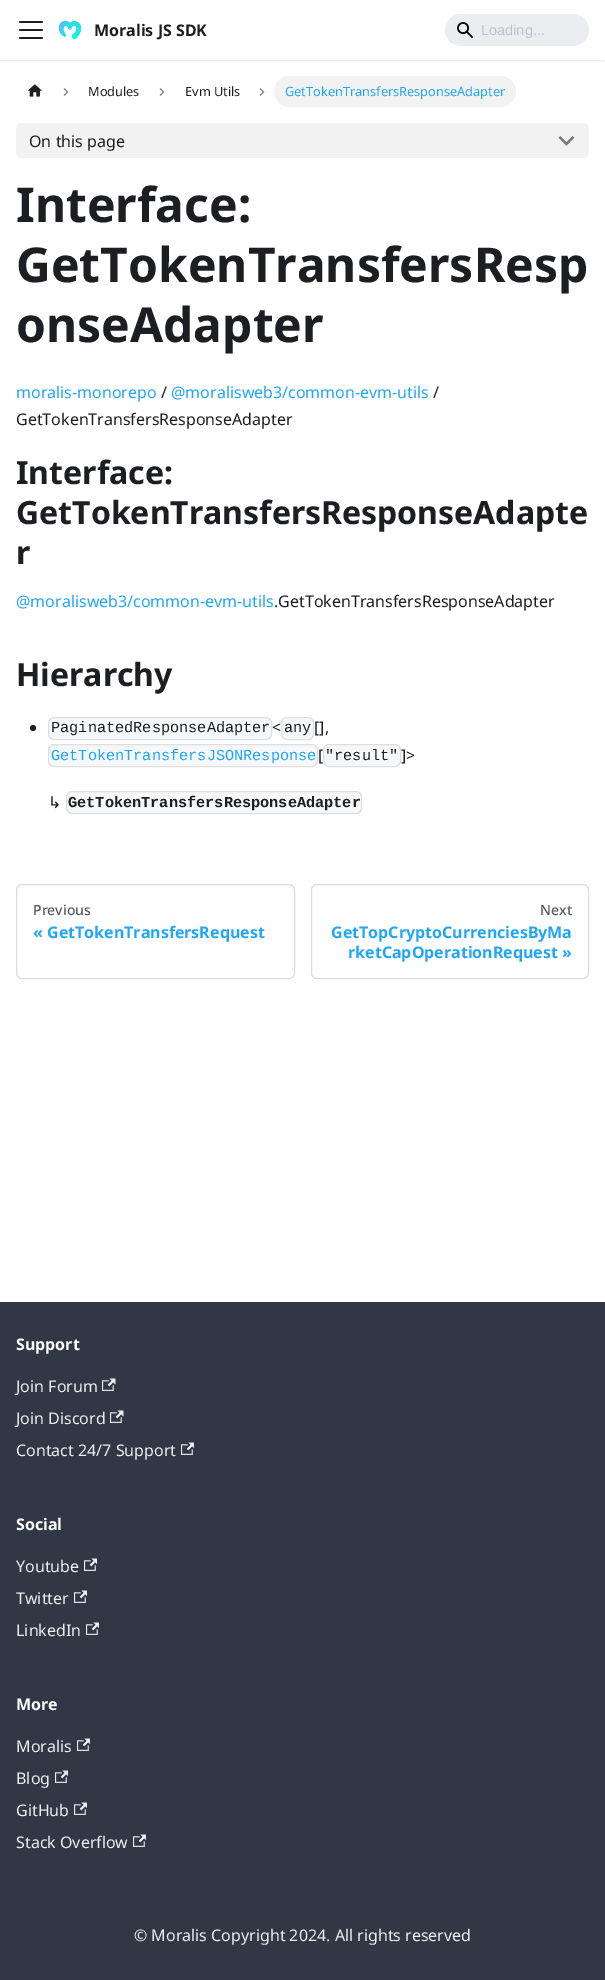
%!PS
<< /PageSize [605 1980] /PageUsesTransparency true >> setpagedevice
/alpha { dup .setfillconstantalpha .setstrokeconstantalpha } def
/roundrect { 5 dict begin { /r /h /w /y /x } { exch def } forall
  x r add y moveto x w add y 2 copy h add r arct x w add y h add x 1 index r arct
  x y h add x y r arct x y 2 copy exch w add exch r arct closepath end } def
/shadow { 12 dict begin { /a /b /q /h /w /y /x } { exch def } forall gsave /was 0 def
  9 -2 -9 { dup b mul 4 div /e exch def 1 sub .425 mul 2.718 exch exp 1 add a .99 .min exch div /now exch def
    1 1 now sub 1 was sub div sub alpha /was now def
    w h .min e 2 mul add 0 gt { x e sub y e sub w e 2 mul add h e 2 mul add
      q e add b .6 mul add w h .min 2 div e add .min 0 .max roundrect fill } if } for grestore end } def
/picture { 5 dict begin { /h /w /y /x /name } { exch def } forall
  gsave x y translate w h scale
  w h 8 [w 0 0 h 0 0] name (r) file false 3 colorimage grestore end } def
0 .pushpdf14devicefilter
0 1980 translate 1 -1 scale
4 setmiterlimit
1 setgray
0 0 605 1980 rectfill
gsave
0 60 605 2 rectclip
0 setgray
0 1 605 60 0 1 0.1 shadow
grestore
(img1.rgb) 19 21 24 18 picture
(img2.rgb) 58 21 24 18 picture
/NotoSans-Bold [16 0 0 -16 0 0] selectfont
0.11 0.118 0.129 setrgbcolor
94 36 moveto (Moralis JS SDK) show
0.922 0.929 0.941 setrgbcolor
445 14 144 32 16 roundrect fill
(img3.rgb) 457 22 16 16 picture
/LiberationSans-Regular [14.5 0 0 -14.5 0 0] selectfont
0.745 0.765 0.788 setrgbcolor
481 35 moveto (Loading...) show
(img4.rgb) 28 84 14 13 picture
(img5.rgb) 63 88 6 8 picture
/NotoSans-Regular [12.75 0 0 -12.75 0 0] selectfont
0.11 0.118 0.129 setrgbcolor
88 96 moveto (Modules) show
(img5.rgb) 159 88 6 8 picture
185 96 moveto (Evm Utils) show
(img5.rgb) 259 88 6 8 picture
0.949 setgray
274 76 242 31 15.5 roundrect fill
0.122 0.651 0.961 setrgbcolor
285 96 moveto (GetTokenTransfersResponseAdapter) show
0.949 setgray
16 123 573 35 6 roundrect fill
/NotoSans-Regular [16 0 0 -16 0 0] selectfont
0.11 0.118 0.129 setrgbcolor
29 147 moveto (On this page) show
(img6.rgb) 558 136 17 10 picture
/NotoSans-Bold [48 0 0 -48 0 0] selectfont
16 222 moveto (Interface:) show
16 282 moveto (GetTokenTransfersResp) show
16 342 moveto (onseAdapter) show
/NotoSans-Regular [16 0 0 -16 0 0] selectfont
0.122 0.651 0.961 setrgbcolor
16 398 moveto (moralis-monorepo) show
0.11 0.118 0.129 setrgbcolor
161 398 moveto (/) show
0.122 0.651 0.961 setrgbcolor
171 398 moveto (@moralisweb3/common-evm-utils) show
0.11 0.118 0.129 setrgbcolor
433 398 moveto (/) show
16 425 moveto (GetTokenTransfersResponseAdapter) show
/NotoSans-Bold [32 0 0 -32 0 0] selectfont
16 484 moveto (Interface:) show
16 524 moveto (GetTokenTransfersResponseAdapte) show
16 564 moveto (r) show
/NotoSans-Regular [16 0 0 -16 0 0] selectfont
0.122 0.651 0.961 setrgbcolor
16 607 moveto (@moralisweb3/common-evm-utils) show
0.11 0.118 0.129 setrgbcolor
274 607 moveto (.GetTokenTransfersResponseAdapter) show
/NotoSans-Bold [32 0 0 -32 0 0] selectfont
16 686 moveto (Hierarchy) show
newpath 33 728 3 0 360 arc closepath fill
0.965 0.969 0.973 setrgbcolor
48.5 717.5 223 22 5.5 roundrect gsave fill grestore
0.867 0.871 0.875 setrgbcolor
stroke
/LiberationMono-Regular [15.25 0 0 -15.25 0 0] selectfont
0.11 0.118 0.129 setrgbcolor
51 732 moveto (PaginatedResponseAdapter) show
/NotoSans-Regular [16 0 0 -16 0 0] selectfont
272 733 moveto (<) show
0.965 0.969 0.973 setrgbcolor
281.5 717.5 32 22 5.5 roundrect gsave fill grestore
0.871 0.875 0.875 setrgbcolor
stroke
/LiberationMono-Regular [15.25 0 0 -15.25 0 0] selectfont
0.11 0.118 0.129 setrgbcolor
284 732 moveto (any) show
/NotoSans-Regular [16 0 0 -16 0 0] selectfont
314 733 moveto ([],) show
0.965 0.969 0.973 setrgbcolor
48.5 744.5 269 22 5.5 roundrect gsave fill grestore
0.867 0.871 0.875 setrgbcolor
stroke
/LiberationMono-Regular [15.25 0 0 -15.25 0 0] selectfont
0.122 0.651 0.961 setrgbcolor
51 760 moveto (GetTokenTransfersJSONResponse) show
/NotoSans-Regular [16 0 0 -16 0 0] selectfont
0.11 0.118 0.129 setrgbcolor
318 761 moveto ([) show
0.965 0.969 0.973 setrgbcolor
323.5 744.5 77 22 5.5 roundrect gsave fill grestore
0.871 0.871 0.875 setrgbcolor
stroke
/LiberationMono-Regular [15.25 0 0 -15.25 0 0] selectfont
0.11 0.118 0.129 setrgbcolor
325 760 moveto ("result") show
/NotoSans-Regular [16 0 0 -16 0 0] selectfont
401 761 moveto (]>) show
/DejaVuSans-Regular [16 0 0 -16 0 0] selectfont
48 808 moveto (↳) show
0.965 0.969 0.973 setrgbcolor
66.5 791.5 295 22 5.5 roundrect gsave fill grestore
0.867 0.871 0.875 setrgbcolor
stroke
/LiberationMono-Bold [15.25 0 0 -15.25 0 0] selectfont
0.11 0.118 0.129 setrgbcolor
68 807 moveto (GetTokenTransfersResponseAdapter) show
0.855 0.867 0.882 setrgbcolor
16.5 884.5 278 94 5.5 roundrect stroke
/NotoSans-Medium [14 0 0 -14 0 0] selectfont
0.322 0.345 0.376 setrgbcolor
33 915 moveto (Previous) show
/NotoSans-Bold [16 0 0 -16 0 0] selectfont
0.122 0.651 0.961 setrgbcolor
33 938 moveto (« GetTokenTransfersRequest) show
0.855 0.867 0.882 setrgbcolor
311.5 884.5 277 94 5.5 roundrect stroke
/NotoSans-Medium [14 0 0 -14 0 0] selectfont
0.322 0.345 0.376 setrgbcolor
540 915 moveto (Next) show
/NotoSans-Bold [16 0 0 -16 0 0] selectfont
0.122 0.651 0.961 setrgbcolor
331 938 moveto (GetTopCryptoCurrenciesByMa) show
348 958 moveto (rketCapOperationRequest ») show
0.188 0.22 0.275 setrgbcolor
0 1302 605 678 rectfill
1 setgray
16 1350 moveto (Support) show
/NotoSans-Regular [16 0 0 -16 0 0] selectfont
0.922 0.929 0.941 setrgbcolor
16 1392 moveto (Join Forum) show
(img7.rgb) 102 1378 14 13 picture
16 1424 moveto (Join Discord) show
(img7.rgb) 110 1410 14 13 picture
16 1456 moveto (Contact 24/7 Support) show
(img8.rgb) 181 1442 13 13 picture
/NotoSans-Bold [16 0 0 -16 0 0] selectfont
1 setgray
16 1530 moveto (Social) show
/NotoSans-Regular [16 0 0 -16 0 0] selectfont
0.922 0.929 0.941 setrgbcolor
16 1572 moveto (Youtube) show
(img8.rgb) 84 1558 13 13 picture
16 1604 moveto (Twitter) show
(img8.rgb) 74 1590 13 13 picture
16 1636 moveto (LinkedIn) show
(img8.rgb) 86 1622 13 13 picture
/NotoSans-Bold [16 0 0 -16 0 0] selectfont
1 setgray
16 1710 moveto (More) show
/NotoSans-Regular [16 0 0 -16 0 0] selectfont
0.922 0.929 0.941 setrgbcolor
16 1752 moveto (Moralis) show
(img8.rgb) 77 1738 13 13 picture
16 1784 moveto (Blog) show
(img8.rgb) 55 1770 13 13 picture
16 1816 moveto (GitHub) show
(img8.rgb) 74 1802 13 13 picture
16 1848 moveto (Stack Overflow) show
(img8.rgb) 133 1834 13 13 picture
134 1941 moveto (© Moralis Copyright 2024. All rights reserved) show
.poppdf14devicefilter showpage
